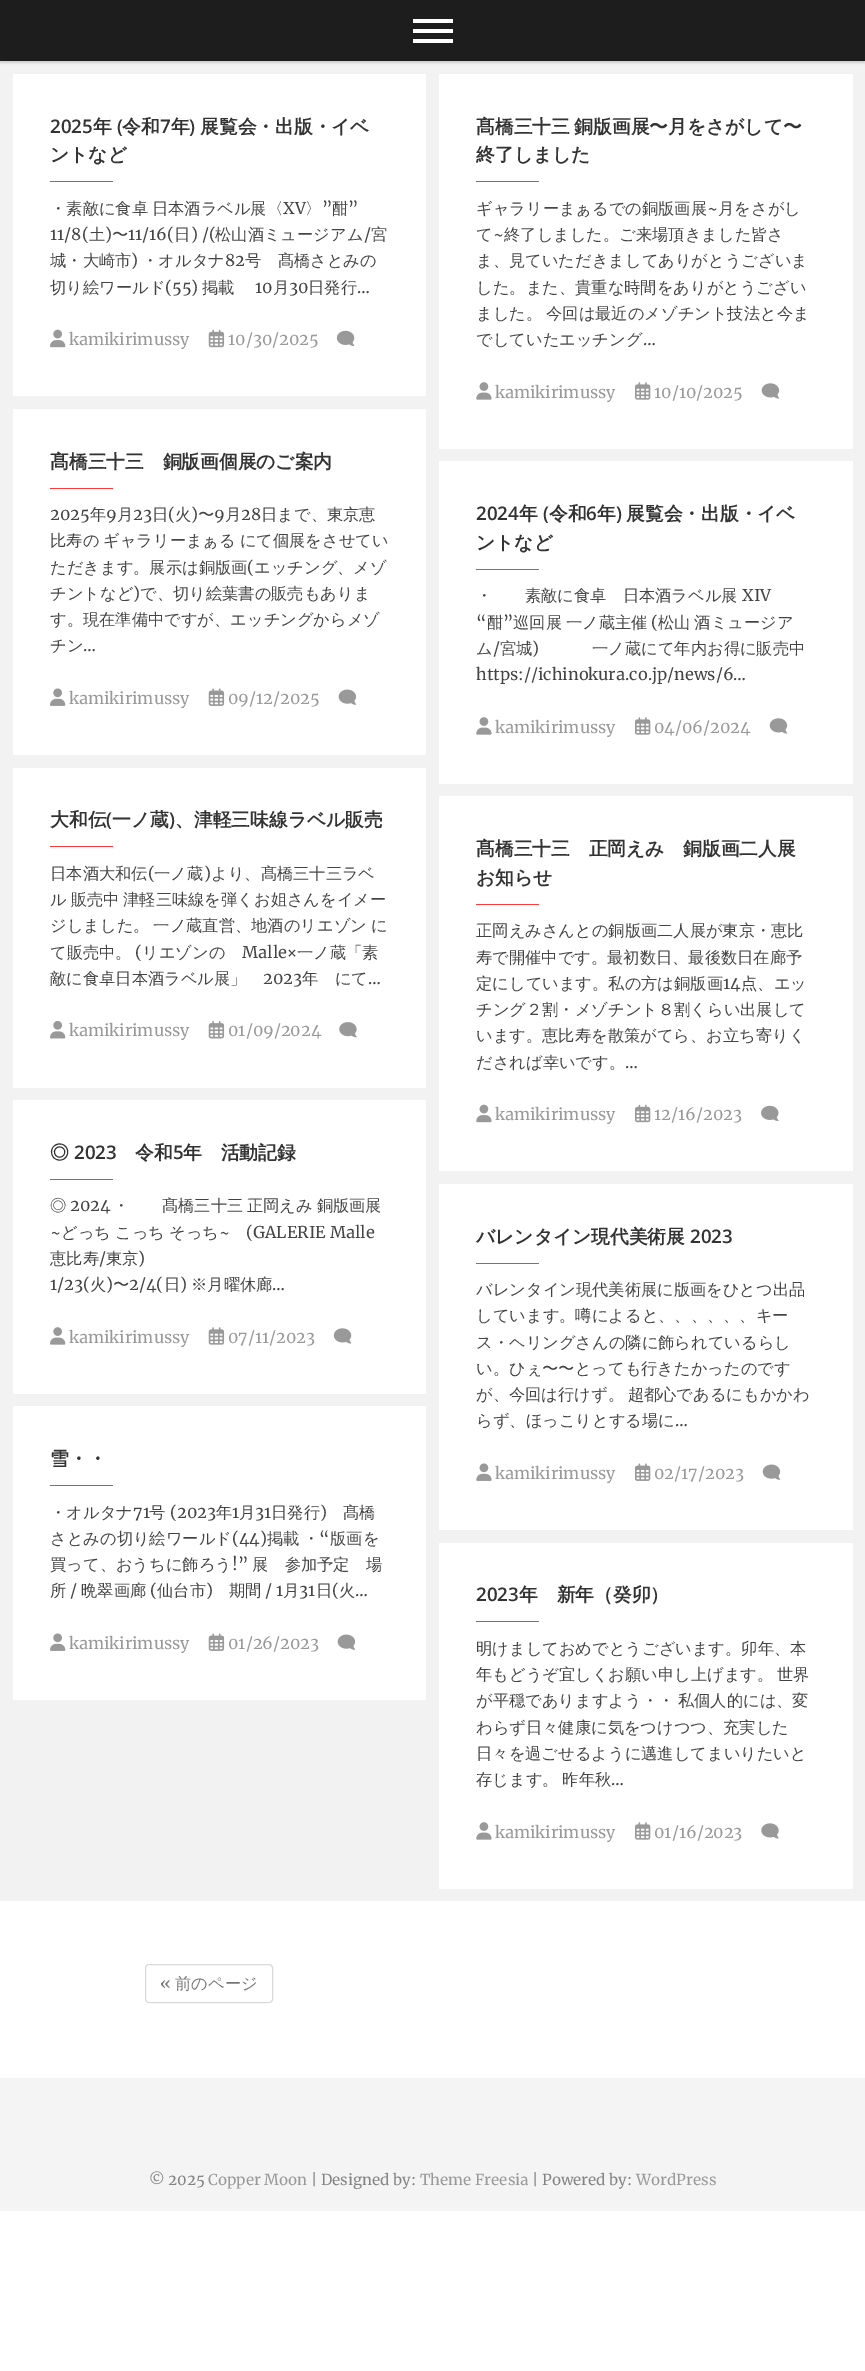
%!PS
<< /PageSize [865 2371] /PageUsesTransparency true >> setpagedevice
/alpha { dup .setfillconstantalpha .setstrokeconstantalpha } def
/roundrect { 5 dict begin { /r /h /w /y /x } { exch def } forall
  x r add y moveto x w add y 2 copy h add r arct x w add y h add x 1 index r arct
  x y h add x y r arct x y 2 copy exch w add exch r arct closepath end } def
/shadow { 12 dict begin { /a /b /q /h /w /y /x } { exch def } forall gsave /was 0 def
  9 -2 -9 { dup b mul 4 div /e exch def 1 sub .425 mul 2.718 exch exp 1 add a .99 .min exch div /now exch def
    1 1 now sub 1 was sub div sub alpha /was now def
    w h .min e 2 mul add 0 gt { x e sub y e sub w e 2 mul add h e 2 mul add
      q e add b .6 mul add w h .min 2 div e add .min 0 .max roundrect fill } if } for grestore end } def
/picture { 5 dict begin { /h /w /y /x /name } { exch def } forall
  gsave x y translate w h scale
  w h 8 [w 0 0 h 0 0] name (r) file false 3 colorimage grestore end } def
0 .pushpdf14devicefilter
0 2371 translate 1 -1 scale
4 setmiterlimit
1 setgray
0 0 865 2371 rectfill
0.949 setgray
0 61 865 1840 rectfill
0 setgray
0 1 865 62 0 1 0.15 shadow
0.114 setgray
0 0 865 61 rectfill
1 setgray
413 19 40 4 rectfill
413 29 40 4 rectfill
413 39 40 4 rectfill
13 74 413 322 rectfill
/OpenSans-SemiBold [18.75 0 0 -18.75 0 0] selectfont
0.2 setgray
50 133 moveto (2025) show
/WenQuanYiZenHei-Bold [18.75 0 0 -18.75 0 0] selectfont
93 133 moveto (年) show
/OpenSans-SemiBold [18.75 0 0 -18.75 0 0] selectfont
117 133 moveto (\() show
/WenQuanYiZenHei-Bold [18.75 0 0 -18.75 0 0] selectfont
122 133 moveto (令和) show
/OpenSans-SemiBold [18.75 0 0 -18.75 0 0] selectfont
160 133 moveto (7) show
/WenQuanYiZenHei-Bold [18.75 0 0 -18.75 0 0] selectfont
171 133 moveto (年) show
/OpenSans-SemiBold [18.75 0 0 -18.75 0 0] selectfont
189 133 moveto (\)) show
/WenQuanYiZenHei-Bold [18.75 0 0 -18.75 0 0] selectfont
200 133 moveto (展覧会・出版・イベ) show
50 161 moveto (ントなど) show
1 0.22 0.22 setrgbcolor
50 181 63 1 rectfill
/WenQuanYiZenHei-Medium [16.25 0 0 -16.25 0 0] selectfont
0.267 setgray
50 214 moveto -1 0 32 (・素敵に食卓 日本酒ラベル展〈) widthshow
/Merriweather-Regular [16.25 0 0 -16.25 0 0] selectfont
283 214 moveto (XV) show
/WenQuanYiZenHei-Medium [16.25 0 0 -16.25 0 0] selectfont
305 214 moveto (〉) show
/Merriweather-Regular [16.25 0 0 -16.25 0 0] selectfont
322 214 moveto (”) show
/WenQuanYiZenHei-Medium [16.25 0 0 -16.25 0 0] selectfont
332 214 moveto (酣) show
/Merriweather-Regular [16.25 0 0 -16.25 0 0] selectfont
348 214 moveto (”) show
50 240 moveto (11/8\() show
/WenQuanYiZenHei-Medium [16.25 0 0 -16.25 0 0] selectfont
89 240 moveto (土) show
/Merriweather-Regular [16.25 0 0 -16.25 0 0] selectfont
105 240 moveto (\)) show
/WenQuanYiZenHei-Medium [16.25 0 0 -16.25 0 0] selectfont
112 240 moveto (〜) show
/Merriweather-Regular [16.25 0 0 -16.25 0 0] selectfont
128 240 moveto (11/16\() show
/WenQuanYiZenHei-Medium [16.25 0 0 -16.25 0 0] selectfont
174 240 moveto (日) show
/Merriweather-Regular [16.25 0 0 -16.25 0 0] selectfont
191 240 moveto (\) /\() show
/WenQuanYiZenHei-Medium [16.25 0 0 -16.25 0 0] selectfont
215 240 moveto (松山酒ミュージアム) show
/Merriweather-Regular [16.25 0 0 -16.25 0 0] selectfont
364 240 moveto (/) show
/WenQuanYiZenHei-Medium [16.25 0 0 -16.25 0 0] selectfont
371 240 moveto (宮) show
50 266 moveto (城・大崎市) show
/Merriweather-Regular [16.25 0 0 -16.25 0 0] selectfont
131 266 moveto (\)) show
/WenQuanYiZenHei-Medium [16.25 0 0 -16.25 0 0] selectfont
142 266 moveto (・オルタナ) show
/Merriweather-Regular [16.25 0 0 -16.25 0 0] selectfont
225 266 moveto (82) show
/WenQuanYiZenHei-Medium [16.25 0 0 -16.25 0 0] selectfont
245 266 moveto (号　髙橋さとみの) show
50 293 moveto (切り絵ワールド) show
/Merriweather-Regular [16.25 0 0 -16.25 0 0] selectfont
165 293 moveto (\(55\)) show
/WenQuanYiZenHei-Medium [16.25 0 0 -16.25 0 0] selectfont
202 293 moveto (掲載) show
/Merriweather-Regular [16.25 0 0 -16.25 0 0] selectfont
255 293 moveto (10) show
/WenQuanYiZenHei-Medium [16.25 0 0 -16.25 0 0] selectfont
273 293 moveto (月) show
/Merriweather-Regular [16.25 0 0 -16.25 0 0] selectfont
289 293 moveto (30) show
/WenQuanYiZenHei-Medium [16.25 0 0 -16.25 0 0] selectfont
308 293 moveto (日発行) show
/Merriweather-Regular [16.25 0 0 -16.25 0 0] selectfont
357 293 moveto (…) show
(img1.rgb) 50 329 16 19 picture
0.6 setgray
69 345 moveto (kamikirimussy) show
(img2.rgb) 208 329 17 19 picture
228 345 moveto (10/30/2025) show
(img3.rgb) 336 330 19 17 picture
1 setgray
439 74 414 375 rectfill
/WenQuanYiZenHei-Bold [18.75 0 0 -18.75 0 0] selectfont
0.2 setgray
476 133 moveto -1 0 32 (髙橋三十三 銅版画展〜月をさがして〜) widthshow
476 161 moveto (終了しました) show
1 0.22 0.22 setrgbcolor
476 181 63 1 rectfill
/WenQuanYiZenHei-Medium [16.25 0 0 -16.25 0 0] selectfont
0.267 setgray
476 214 moveto (ギャラリーまぁるでの銅版画展) show
/Merriweather-Regular [16.25 0 0 -16.25 0 0] selectfont
707 214 moveto (~) show
/WenQuanYiZenHei-Medium [16.25 0 0 -16.25 0 0] selectfont
718 214 moveto (月をさがし) show
476 240 moveto (て) show
/Merriweather-Regular [16.25 0 0 -16.25 0 0] selectfont
493 240 moveto (~) show
/WenQuanYiZenHei-Medium [16.25 0 0 -16.25 0 0] selectfont
504 240 moveto (終了しました。ご来場頂きました皆さ) show
476 266 moveto (ま、見ていただきましてありがとうございま) show
476 293 moveto (した。また、貴重な時間をありがとうござい) show
476 319 moveto -1 0 32 (ました。 今回は最近のメゾチント技法と今ま) widthshow
476 345 moveto (でしていたエッチング) show
/Merriweather-Regular [16.25 0 0 -16.25 0 0] selectfont
643 345 moveto (…) show
(img4.rgb) 476 382 16 18 picture
0.6 setgray
495 398 moveto (kamikirimussy) show
(img5.rgb) 635 382 16 18 picture
654 398 moveto (10/10/2025) show
(img6.rgb) 761 383 19 16 picture
1 setgray
13 409 413 346 rectfill
/WenQuanYiZenHei-Bold [18.75 0 0 -18.75 0 0] selectfont
0.2 setgray
50 468 moveto (髙橋三十三　銅版画個展のご案内) show
1 0.22 0.22 setrgbcolor
50 488 63 1 rectfill
/Merriweather-Regular [16.25 0 0 -16.25 0 0] selectfont
0.267 setgray
50 520 moveto (2025) show
/WenQuanYiZenHei-Medium [16.25 0 0 -16.25 0 0] selectfont
90 520 moveto (年) show
/Merriweather-Regular [16.25 0 0 -16.25 0 0] selectfont
106 520 moveto (9) show
/WenQuanYiZenHei-Medium [16.25 0 0 -16.25 0 0] selectfont
117 520 moveto (月) show
/Merriweather-Regular [16.25 0 0 -16.25 0 0] selectfont
133 520 moveto (23) show
/WenQuanYiZenHei-Medium [16.25 0 0 -16.25 0 0] selectfont
152 520 moveto (日) show
/Merriweather-Regular [16.25 0 0 -16.25 0 0] selectfont
168 520 moveto (\() show
/WenQuanYiZenHei-Medium [16.25 0 0 -16.25 0 0] selectfont
175 520 moveto (火) show
/Merriweather-Regular [16.25 0 0 -16.25 0 0] selectfont
191 520 moveto (\)) show
/WenQuanYiZenHei-Medium [16.25 0 0 -16.25 0 0] selectfont
198 520 moveto (〜) show
/Merriweather-Regular [16.25 0 0 -16.25 0 0] selectfont
214 520 moveto (9) show
/WenQuanYiZenHei-Medium [16.25 0 0 -16.25 0 0] selectfont
225 520 moveto (月) show
/Merriweather-Regular [16.25 0 0 -16.25 0 0] selectfont
241 520 moveto (28) show
/WenQuanYiZenHei-Medium [16.25 0 0 -16.25 0 0] selectfont
261 520 moveto (日まで、東京恵) show
50 546 moveto -1 0 32 (比寿の ギャラリーまぁる にて個展をさせてい) widthshow
50 573 moveto (ただきます。展示は銅版画) show
/Merriweather-Regular [16.25 0 0 -16.25 0 0] selectfont
247 573 moveto (\() show
/WenQuanYiZenHei-Medium [16.25 0 0 -16.25 0 0] selectfont
254 573 moveto (エッチング、メゾ) show
50 599 moveto (チントなど) show
/Merriweather-Regular [16.25 0 0 -16.25 0 0] selectfont
133 599 moveto (\)) show
/WenQuanYiZenHei-Medium [16.25 0 0 -16.25 0 0] selectfont
140 599 moveto (で、切り絵葉書の販売もありま) show
50 625 moveto (す。現在準備中ですが、エッチングからメゾ) show
50 651 moveto (チン) show
/Merriweather-Regular [16.25 0 0 -16.25 0 0] selectfont
83 651 moveto (…) show
(img7.rgb) 50 688 16 18 picture
0.6 setgray
69 704 moveto (kamikirimussy) show
(img8.rgb) 208 688 17 18 picture
228 704 moveto (09/12/2025) show
(img9.rgb) 338 689 19 16 picture
1 setgray
439 461 414 323 rectfill
/OpenSans-SemiBold [18.75 0 0 -18.75 0 0] selectfont
0.2 setgray
476 520 moveto (2024) show
/WenQuanYiZenHei-Bold [18.75 0 0 -18.75 0 0] selectfont
519 520 moveto (年) show
/OpenSans-SemiBold [18.75 0 0 -18.75 0 0] selectfont
543 520 moveto (\() show
/WenQuanYiZenHei-Bold [18.75 0 0 -18.75 0 0] selectfont
549 520 moveto (令和) show
/OpenSans-SemiBold [18.75 0 0 -18.75 0 0] selectfont
586 520 moveto (6) show
/WenQuanYiZenHei-Bold [18.75 0 0 -18.75 0 0] selectfont
597 520 moveto (年) show
/OpenSans-SemiBold [18.75 0 0 -18.75 0 0] selectfont
616 520 moveto (\)) show
/WenQuanYiZenHei-Bold [18.75 0 0 -18.75 0 0] selectfont
626 520 moveto (展覧会・出版・イベ) show
476 549 moveto (ントなど) show
1 0.22 0.22 setrgbcolor
476 569 63 1 rectfill
/WenQuanYiZenHei-Medium [16.25 0 0 -16.25 0 0] selectfont
0.267 setgray
476 601 moveto (・　　素敵に食卓　日本酒ラベル展) show
/Merriweather-Regular [16.25 0 0 -16.25 0 0] selectfont
742 601 moveto (XIV) show
476 628 moveto (“) show
/WenQuanYiZenHei-Medium [16.25 0 0 -16.25 0 0] selectfont
487 628 moveto (酣) show
/Merriweather-Regular [16.25 0 0 -16.25 0 0] selectfont
503 628 moveto (”) show
/WenQuanYiZenHei-Medium [16.25 0 0 -16.25 0 0] selectfont
513 628 moveto -1 0 32 (巡回展 一ノ蔵主催) widthshow
/Merriweather-Regular [16.25 0 0 -16.25 0 0] selectfont
651 628 moveto (\() show
/WenQuanYiZenHei-Medium [16.25 0 0 -16.25 0 0] selectfont
658 628 moveto -1 0 32 (松山 酒ミュージア) widthshow
476 654 moveto (ム) show
/Merriweather-Regular [16.25 0 0 -16.25 0 0] selectfont
493 654 moveto (/) show
/WenQuanYiZenHei-Medium [16.25 0 0 -16.25 0 0] selectfont
500 654 moveto (宮城) show
/Merriweather-Regular [16.25 0 0 -16.25 0 0] selectfont
532 654 moveto (\)) show
/WenQuanYiZenHei-Medium [16.25 0 0 -16.25 0 0] selectfont
592 654 moveto (一ノ蔵にて年内お得に販売中) show
/Merriweather-Regular [16.25 0 0 -16.25 0 0] selectfont
476 680 moveto (https://ichinokura.co.jp/news/6…) show
(img4.rgb) 476 717 16 18 picture
0.6 setgray
495 733 moveto (kamikirimussy) show
(img5.rgb) 635 717 16 18 picture
654 733 moveto (04/06/2024) show
(img10.rgb) 769 718 19 16 picture
1 setgray
13 768 413 320 rectfill
/WenQuanYiZenHei-Bold [18.75 0 0 -18.75 0 0] selectfont
0.2 setgray
50 826 moveto (大和伝) show
/OpenSans-SemiBold [18.75 0 0 -18.75 0 0] selectfont
106 826 moveto (\() show
/WenQuanYiZenHei-Bold [18.75 0 0 -18.75 0 0] selectfont
112 826 moveto (一ノ蔵) show
/OpenSans-SemiBold [18.75 0 0 -18.75 0 0] selectfont
169 826 moveto (\)) show
/WenQuanYiZenHei-Bold [18.75 0 0 -18.75 0 0] selectfont
175 826 moveto (、津軽三味線ラベル販売) show
1 0.22 0.22 setrgbcolor
50 846 63 1 rectfill
/WenQuanYiZenHei-Medium [16.25 0 0 -16.25 0 0] selectfont
0.267 setgray
50 879 moveto (日本酒大和伝) show
/Merriweather-Regular [16.25 0 0 -16.25 0 0] selectfont
148 879 moveto (\() show
/WenQuanYiZenHei-Medium [16.25 0 0 -16.25 0 0] selectfont
154 879 moveto (一ノ蔵) show
/Merriweather-Regular [16.25 0 0 -16.25 0 0] selectfont
204 879 moveto (\)) show
/WenQuanYiZenHei-Medium [16.25 0 0 -16.25 0 0] selectfont
211 879 moveto (より、髙橋三十三ラベ) show
50 905 moveto -1 0 32 (ル 販売中 津軽三味線を弾くお姐さんをイメー) widthshow
50 931 moveto -1 0 32 (ジしました。 一ノ蔵直営、地酒のリエゾン に) widthshow
50 958 moveto (て販売中。) show
/Merriweather-Regular [16.25 0 0 -16.25 0 0] selectfont
135 958 moveto (\() show
/WenQuanYiZenHei-Medium [16.25 0 0 -16.25 0 0] selectfont
142 958 moveto (リエゾンの) show
/Merriweather-Regular [16.25 0 0 -16.25 0 0] selectfont
242 958 moveto (Malle×) show
/WenQuanYiZenHei-Medium [16.25 0 0 -16.25 0 0] selectfont
297 958 moveto (一ノ蔵「素) show
50 984 moveto (敵に食卓日本酒ラベル展」) show
/Merriweather-Regular [16.25 0 0 -16.25 0 0] selectfont
263 984 moveto (2023) show
/WenQuanYiZenHei-Medium [16.25 0 0 -16.25 0 0] selectfont
302 984 moveto (年　にて) show
/Merriweather-Regular [16.25 0 0 -16.25 0 0] selectfont
368 984 moveto (…) show
(img11.rgb) 50 1021 16 18 picture
0.6 setgray
69 1036 moveto (kamikirimussy) show
(img12.rgb) 208 1021 17 18 picture
228 1036 moveto (01/09/2024) show
(img13.rgb) 339 1022 18 16 picture
1 setgray
439 796 414 375 rectfill
/WenQuanYiZenHei-Bold [18.75 0 0 -18.75 0 0] selectfont
0.2 setgray
476 855 moveto (髙橋三十三　正岡えみ　銅版画二人展) show
476 884 moveto (お知らせ) show
1 0.22 0.22 setrgbcolor
476 904 63 1 rectfill
/WenQuanYiZenHei-Medium [16.25 0 0 -16.25 0 0] selectfont
0.267 setgray
476 936 moveto (正岡えみさんとの銅版画二人展が東京・恵比) show
476 963 moveto (寿で開催中です。最初数日、最後数日在廊予) show
476 989 moveto (定にしています。私の方は銅版画) show
/Merriweather-Regular [16.25 0 0 -16.25 0 0] selectfont
723 989 moveto (14) show
/WenQuanYiZenHei-Medium [16.25 0 0 -16.25 0 0] selectfont
741 989 moveto (点、エッ) show
476 1015 moveto (チング２割・メゾチント８割くらい出展して) show
476 1041 moveto (います。恵比寿を散策がてら、お立ち寄りく) show
476 1068 moveto (だされば幸いです。) show
/Merriweather-Regular [16.25 0 0 -16.25 0 0] selectfont
625 1068 moveto (…) show
(img14.rgb) 476 1104 16 19 picture
0.6 setgray
495 1120 moveto (kamikirimussy) show
(img15.rgb) 635 1104 16 19 picture
654 1120 moveto (12/16/2023) show
(img16.rgb) 761 1105 18 16 picture
1 setgray
13 1100 413 294 rectfill
/WenQuanYiZenHei-Bold [18.75 0 0 -18.75 0 0] selectfont
0.2 setgray
50 1159 moveto (◎) show
/OpenSans-SemiBold [18.75 0 0 -18.75 0 0] selectfont
74 1159 moveto (2023) show
/WenQuanYiZenHei-Bold [18.75 0 0 -18.75 0 0] selectfont
135 1159 moveto (令和) show
/OpenSans-SemiBold [18.75 0 0 -18.75 0 0] selectfont
173 1159 moveto (5) show
/WenQuanYiZenHei-Bold [18.75 0 0 -18.75 0 0] selectfont
183 1159 moveto (年　活動記録) show
1 0.22 0.22 setrgbcolor
50 1179 63 1 rectfill
/WenQuanYiZenHei-Medium [16.25 0 0 -16.25 0 0] selectfont
0.267 setgray
50 1211 moveto (◎) show
/Merriweather-Regular [16.25 0 0 -16.25 0 0] selectfont
70 1211 moveto (2024) show
/WenQuanYiZenHei-Medium [16.25 0 0 -16.25 0 0] selectfont
113 1211 moveto -1 0 32 (・　　髙橋三十三 正岡えみ 銅版画展) widthshow
/Merriweather-Regular [16.25 0 0 -16.25 0 0] selectfont
50 1238 moveto (~) show
/WenQuanYiZenHei-Medium [16.25 0 0 -16.25 0 0] selectfont
61 1238 moveto (どっち) show
115 1238 moveto (こっち) show
169 1238 moveto (そっち) show
/Merriweather-Regular [16.25 0 0 -16.25 0 0] selectfont
219 1238 moveto (~) show
246 1238 moveto (\(GALERIE Malle) show
/WenQuanYiZenHei-Medium [16.25 0 0 -16.25 0 0] selectfont
50 1264 moveto (恵比寿) show
/Merriweather-Regular [16.25 0 0 -16.25 0 0] selectfont
99 1264 moveto (/) show
/WenQuanYiZenHei-Medium [16.25 0 0 -16.25 0 0] selectfont
106 1264 moveto (東京) show
/Merriweather-Regular [16.25 0 0 -16.25 0 0] selectfont
138 1264 moveto (\)) show
50 1290 moveto (1/23\() show
/WenQuanYiZenHei-Medium [16.25 0 0 -16.25 0 0] selectfont
90 1290 moveto (火) show
/Merriweather-Regular [16.25 0 0 -16.25 0 0] selectfont
106 1290 moveto (\)) show
/WenQuanYiZenHei-Medium [16.25 0 0 -16.25 0 0] selectfont
113 1290 moveto (〜) show
/Merriweather-Regular [16.25 0 0 -16.25 0 0] selectfont
129 1290 moveto (2/4\() show
/WenQuanYiZenHei-Medium [16.25 0 0 -16.25 0 0] selectfont
164 1290 moveto (日) show
/Merriweather-Regular [16.25 0 0 -16.25 0 0] selectfont
180 1290 moveto (\)) show
/WenQuanYiZenHei-Medium [16.25 0 0 -16.25 0 0] selectfont
191 1290 moveto (※月曜休廊) show
/Merriweather-Regular [16.25 0 0 -16.25 0 0] selectfont
272 1290 moveto (…) show
(img17.rgb) 50 1327 16 18 picture
0.6 setgray
69 1343 moveto (kamikirimussy) show
(img18.rgb) 208 1327 17 18 picture
228 1343 moveto (07/11/2023) show
(img19.rgb) 333 1328 19 16 picture
1 setgray
439 1184 414 346 rectfill
/WenQuanYiZenHei-Bold [18.75 0 0 -18.75 0 0] selectfont
0.2 setgray
476 1243 moveto (バレンタイン現代美術展) show
/OpenSans-SemiBold [18.75 0 0 -18.75 0 0] selectfont
690 1243 moveto (2023) show
1 0.22 0.22 setrgbcolor
476 1263 63 1 rectfill
/WenQuanYiZenHei-Medium [16.25 0 0 -16.25 0 0] selectfont
0.267 setgray
476 1295 moveto (バレンタイン現代美術展に版画をひとつ出品) show
476 1321 moveto (しています。噂によると、、、、、、キー) show
476 1348 moveto (ス・ヘリングさんの隣に飾られているらし) show
476 1374 moveto (い。ひぇ〜〜とっても行きたかったのです) show
476 1400 moveto -1 0 32 (が、今回は行けず。 超都心であるにもかかわ) widthshow
476 1426 moveto (らず、ほっこりとする場に) show
/Merriweather-Regular [16.25 0 0 -16.25 0 0] selectfont
675 1426 moveto (…) show
(img20.rgb) 476 1463 16 18 picture
0.6 setgray
495 1479 moveto (kamikirimussy) show
(img21.rgb) 635 1463 16 18 picture
654 1479 moveto (02/17/2023) show
(img22.rgb) 762 1464 19 16 picture
1 setgray
13 1406 413 294 rectfill
/WenQuanYiZenHei-Bold [18.75 0 0 -18.75 0 0] selectfont
0.2 setgray
50 1465 moveto (雪・・) show
1 0.22 0.22 setrgbcolor
50 1485 63 1 rectfill
/WenQuanYiZenHei-Medium [16.25 0 0 -16.25 0 0] selectfont
0.267 setgray
50 1518 moveto (・オルタナ) show
/Merriweather-Regular [16.25 0 0 -16.25 0 0] selectfont
133 1518 moveto (71) show
/WenQuanYiZenHei-Medium [16.25 0 0 -16.25 0 0] selectfont
149 1518 moveto (号) show
/Merriweather-Regular [16.25 0 0 -16.25 0 0] selectfont
170 1518 moveto (\(2023) show
/WenQuanYiZenHei-Medium [16.25 0 0 -16.25 0 0] selectfont
216 1518 moveto (年) show
/Merriweather-Regular [16.25 0 0 -16.25 0 0] selectfont
232 1518 moveto (1) show
/WenQuanYiZenHei-Medium [16.25 0 0 -16.25 0 0] selectfont
239 1518 moveto (月) show
/Merriweather-Regular [16.25 0 0 -16.25 0 0] selectfont
255 1518 moveto (31) show
/WenQuanYiZenHei-Medium [16.25 0 0 -16.25 0 0] selectfont
271 1518 moveto (日発行) show
/Merriweather-Regular [16.25 0 0 -16.25 0 0] selectfont
320 1518 moveto (\)) show
/WenQuanYiZenHei-Medium [16.25 0 0 -16.25 0 0] selectfont
343 1518 moveto (髙橋) show
50 1544 moveto (さとみの切り絵ワールド) show
/Merriweather-Regular [16.25 0 0 -16.25 0 0] selectfont
232 1544 moveto (\(44\)) show
/WenQuanYiZenHei-Medium [16.25 0 0 -16.25 0 0] selectfont
267 1544 moveto -1 0 32 (掲載 ・) widthshow
/Merriweather-Regular [16.25 0 0 -16.25 0 0] selectfont
319 1544 moveto (“) show
/WenQuanYiZenHei-Medium [16.25 0 0 -16.25 0 0] selectfont
330 1544 moveto (版画を) show
50 1570 moveto (買って、おうちに飾ろう) show
/Merriweather-Regular [16.25 0 0 -16.25 0 0] selectfont
232 1570 moveto (!”) show
/WenQuanYiZenHei-Medium [16.25 0 0 -16.25 0 0] selectfont
252 1570 moveto (展　参加予定　場) show
50 1596 moveto (所) show
/Merriweather-Regular [16.25 0 0 -16.25 0 0] selectfont
70 1596 moveto (/) show
/WenQuanYiZenHei-Medium [16.25 0 0 -16.25 0 0] selectfont
81 1596 moveto (晩翠画廊) show
/Merriweather-Regular [16.25 0 0 -16.25 0 0] selectfont
150 1596 moveto (\() show
/WenQuanYiZenHei-Medium [16.25 0 0 -16.25 0 0] selectfont
157 1596 moveto (仙台市) show
/Merriweather-Regular [16.25 0 0 -16.25 0 0] selectfont
206 1596 moveto (\)) show
/WenQuanYiZenHei-Medium [16.25 0 0 -16.25 0 0] selectfont
229 1596 moveto (期間) show
/Merriweather-Regular [16.25 0 0 -16.25 0 0] selectfont
265 1596 moveto (/ 1) show
/WenQuanYiZenHei-Medium [16.25 0 0 -16.25 0 0] selectfont
283 1596 moveto (月) show
/Merriweather-Regular [16.25 0 0 -16.25 0 0] selectfont
299 1596 moveto (31) show
/WenQuanYiZenHei-Medium [16.25 0 0 -16.25 0 0] selectfont
316 1596 moveto (日) show
/Merriweather-Regular [16.25 0 0 -16.25 0 0] selectfont
332 1596 moveto (\() show
/WenQuanYiZenHei-Medium [16.25 0 0 -16.25 0 0] selectfont
339 1596 moveto (火) show
/Merriweather-Regular [16.25 0 0 -16.25 0 0] selectfont
355 1596 moveto (…) show
(img7.rgb) 50 1633 16 18 picture
0.6 setgray
69 1649 moveto (kamikirimussy) show
(img8.rgb) 208 1633 17 18 picture
228 1649 moveto (01/26/2023) show
(img23.rgb) 337 1634 19 16 picture
1 setgray
439 1543 414 346 rectfill
/OpenSans-SemiBold [18.75 0 0 -18.75 0 0] selectfont
0.2 setgray
476 1601 moveto (2023) show
/WenQuanYiZenHei-Bold [18.75 0 0 -18.75 0 0] selectfont
519 1601 moveto (年　新年（癸卯）) show
1 0.22 0.22 setrgbcolor
476 1621 63 1 rectfill
/WenQuanYiZenHei-Medium [16.25 0 0 -16.25 0 0] selectfont
0.267 setgray
476 1654 moveto (明けましておめでとうございます。卯年、本) show
476 1680 moveto -1 0 32 (年もどうぞ宜しくお願い申し上げます。 世界) widthshow
476 1706 moveto -1 0 32 (が平穏でありますよう・・ 私個人的には、変) widthshow
476 1733 moveto (わらず日々健康に気をつけつつ、充実した) show
476 1759 moveto (日々を過ごせるように邁進してまいりたいと) show
476 1785 moveto -1 0 32 (存じます。 昨年秋) widthshow
/Merriweather-Regular [16.25 0 0 -16.25 0 0] selectfont
611 1785 moveto (…) show
(img4.rgb) 476 1822 16 18 picture
0.6 setgray
495 1838 moveto (kamikirimussy) show
(img5.rgb) 635 1822 16 18 picture
654 1838 moveto (01/16/2023) show
(img24.rgb) 761 1823 18 16 picture
0.851 setgray
145.5 1964.5 127 38 3.5 roundrect stroke
0.455 setgray
160 1989 moveto («) show
/WenQuanYiZenHei-Medium [16.25 0 0 -16.25 0 0] selectfont
175 1989 moveto (前のページ) show
0.957 setgray
0 2078 865 133 rectfill
/Merriweather-Regular [15 0 0 -15 0 0] selectfont
0.518 setgray
149 2185 moveto (© 2025) show
0.6 setgray
208 2185 moveto (Copper Moon) show
0.518 setgray
311 2185 moveto (| Designed by:) show
0.6 setgray
420 2185 moveto (Theme Freesia) show
0.518 setgray
532 2185 moveto (| Powered by:) show
0.6 setgray
636 2185 moveto (WordPress) show
.poppdf14devicefilter showpage
